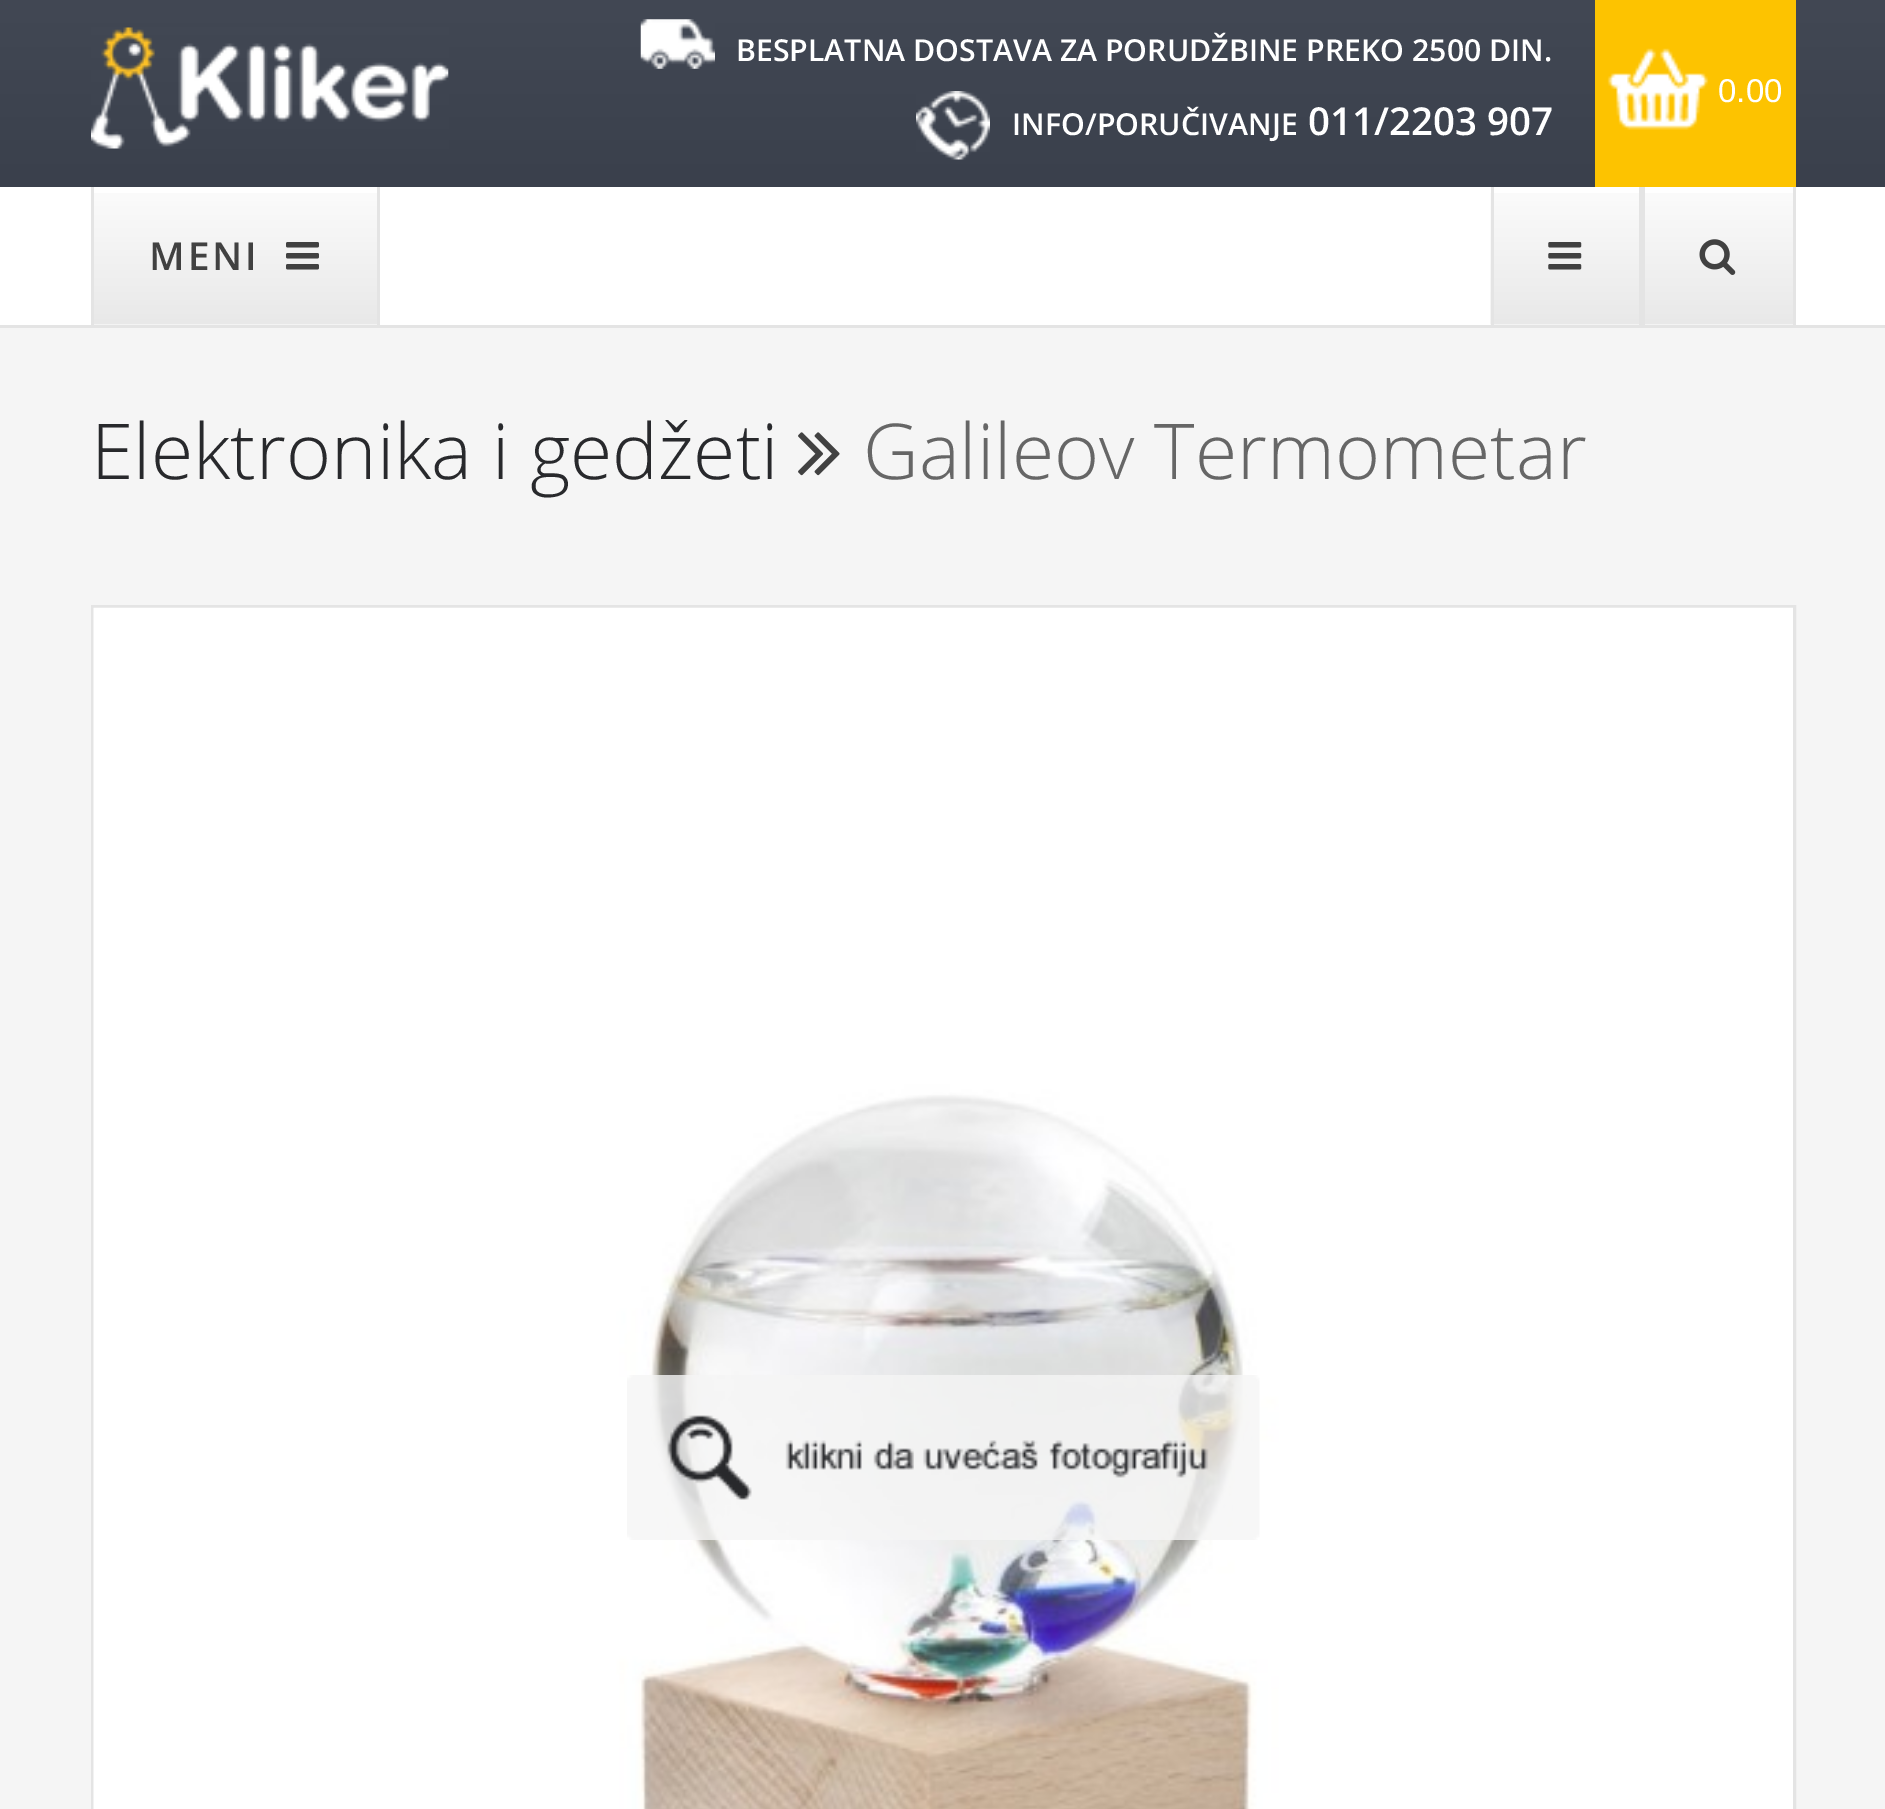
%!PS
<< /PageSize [1885 1809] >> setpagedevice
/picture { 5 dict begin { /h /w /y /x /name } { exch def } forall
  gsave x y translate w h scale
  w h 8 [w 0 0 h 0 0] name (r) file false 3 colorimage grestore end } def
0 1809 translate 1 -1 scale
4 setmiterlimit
0.961 setgray
0 0 1885 1809 rectfill
gsave newpath 0 0 moveto 1885 0 lineto 1885 187 lineto 0 187 lineto closepath clip newpath
<< /ShadingType 2 /ColorSpace /DeviceRGB /Coords [943 0 943 187] /Extend [true true] /Function << /FunctionType 2 /Domain [0 1] /C0 [0.259 0.282 0.329] /C1 [0.227 0.251 0.298] /N 1 >> >> shfill grestore
(img1.rgb) 91 27 358 122 picture
(img2.rgb) 640 19 75 50 picture
/OpenSans-SemiBold [30.25 0 0 -30.25 0 0] selectfont
1 setgray
736 61 moveto (BESPLATNA DOSTAVA ZA PORUDŽBINE PREKO 2500 DIN.) show
(img3.rgb) 916 91 74 69 picture
1012 135 moveto (INFO/PORUČIVANJE) show
/OpenSans-SemiBold [38.5 0 0 -38.5 0 0] selectfont
1308 135 moveto (011/2203 907) show
0.992 0.765 0 setrgbcolor
1595 0 201 187 rectfill
(img4.rgb) 1607 48 102 82 picture
/LiberationSans-Regular [33 0 0 -33 0 0] selectfont
1 setgray
1718 102 moveto (0.00) show
0 187 1885 138 rectfill
0.894 setgray
0 325 1885 3 rectfill
(img5.rgb) 94 193 283 132 picture
377 187 3 138 rectfill
91 187 3 138 rectfill
/OpenSans-SemiBold [38.5 0 0 -38.5 0 0] selectfont
0.255 setgray
149 270 moveto 3 0 (MENI) ashow
(img6.rgb) 286 242 33 28 picture
(img7.rgb) 1490 193 149 132 picture
0.894 setgray
1491 187 3 138 rectfill
(img8.rgb) 1548 242 34 28 picture
(img9.rgb) 1645 193 148 132 picture
1793 187 3 138 rectfill
1639 187 6 138 rectfill
(img10.rgb) 1699 239 37 36 picture
/OpenSans-Light [77 0 0 -77 0 0] selectfont
0.157 0.161 0.173 setrgbcolor
91 479 moveto (Elektronika i gedžeti) show
(img11.rgb) 798 432 42 44 picture
0.4 setgray
863 479 moveto (Galileov Termometar) show
0.894 setgray
3 setlinewidth
92.5 606.5 1702 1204 rectstroke
(img12.rgb) 93 607 1700 1202 picture
(img13.rgb) 627 1375 633 165 picture
showpage
